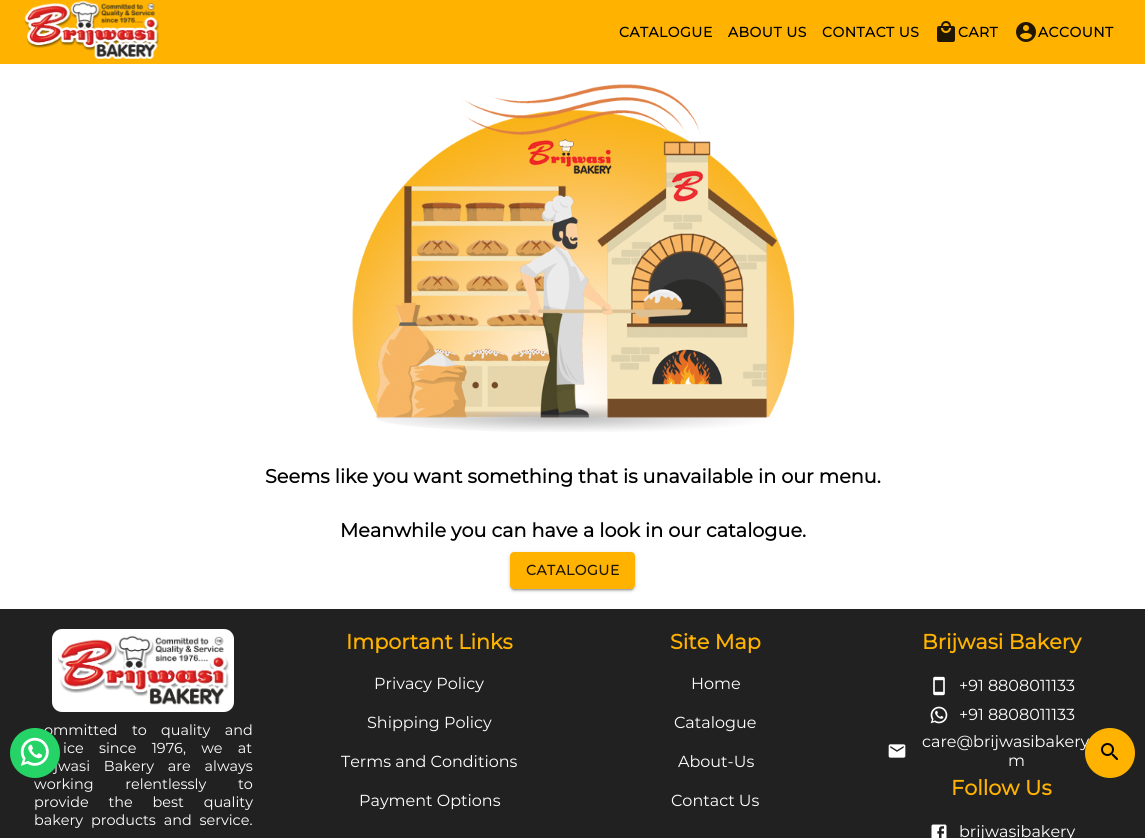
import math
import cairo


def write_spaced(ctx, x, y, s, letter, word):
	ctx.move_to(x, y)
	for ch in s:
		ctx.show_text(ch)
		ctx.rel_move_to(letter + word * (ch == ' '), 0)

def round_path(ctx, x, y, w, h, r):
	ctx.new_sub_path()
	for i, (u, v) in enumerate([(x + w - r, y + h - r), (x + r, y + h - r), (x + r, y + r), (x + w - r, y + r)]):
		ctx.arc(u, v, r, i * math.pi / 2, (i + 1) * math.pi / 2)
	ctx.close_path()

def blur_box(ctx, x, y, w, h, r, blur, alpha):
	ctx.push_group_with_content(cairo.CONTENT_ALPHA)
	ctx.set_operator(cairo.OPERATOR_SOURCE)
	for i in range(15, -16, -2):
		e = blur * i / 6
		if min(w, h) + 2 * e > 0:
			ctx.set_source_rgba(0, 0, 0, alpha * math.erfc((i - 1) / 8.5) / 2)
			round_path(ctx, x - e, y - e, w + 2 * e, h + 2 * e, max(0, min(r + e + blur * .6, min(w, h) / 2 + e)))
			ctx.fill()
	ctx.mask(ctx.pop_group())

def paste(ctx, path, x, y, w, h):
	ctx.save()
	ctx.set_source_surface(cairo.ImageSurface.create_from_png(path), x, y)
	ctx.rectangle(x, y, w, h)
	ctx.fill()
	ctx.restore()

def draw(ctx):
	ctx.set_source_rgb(1, 1, 1)
	ctx.paint()
	ctx.set_source_rgb(1, 0.702, 0)
	ctx.rectangle(0, 0, 1145, 64)
	ctx.fill()
	paste(ctx, 'media/1.png', 24, 0, 135, 59)
	ctx.select_font_face('Montserrat', cairo.FONT_SLANT_NORMAL, cairo.FONT_WEIGHT_BOLD)
	ctx.set_font_size(14)
	ctx.set_source_rgb(0, 0, 0)
	for x, y, s in [
		(619, 37, 'CATALOGUE'),
		(728, 37, 'ABOUT US'),
		(822, 37, 'CONTACT US'),
	]:
		write_spaced(ctx, x, y, s, 0.5, 0)
	paste(ctx, 'media/2.png', 937, 21, 18, 21)
	write_spaced(ctx, 958, 37, 'CART', 0.5, 0)
	paste(ctx, 'media/3.png', 1016, 22, 20, 20)
	write_spaced(ctx, 1038, 37, 'ACCOUNT', 0.5, 0)
	ctx.set_source_rgb(0.129, 0.129, 0.129)
	ctx.rectangle(0, 609, 1145, 229)
	ctx.fill()
	ctx.select_font_face('Montserrat Thin')
	ctx.set_font_size(14.4)
	ctx.set_source_rgb(1, 1, 1)
	write_spaced(ctx, 44, 735, 'ommitted to quality and', 0, 10.5)
	write_spaced(ctx, 54, 771, 'jwasi Bakery are always', 0, 10)
	ctx.set_source_rgb(0.145, 0.827, 0.4)
	ctx.new_path()
	ctx.arc(35, 753, 25, 0, 2 * math.pi)
	ctx.fill()
	paste(ctx, 'media/4.png', 20, 737, 29, 29)
	ctx.set_font_size(16)
	ctx.set_source_rgb(1, 1, 1)
	ctx.move_to(922, 747)
	ctx.show_text('care@brijwasibakery')
	ctx.set_source_rgb(1, 0.702, 0)
	ctx.new_path()
	ctx.arc(1110, 753, 25, 0, 2 * math.pi)
	ctx.fill()
	paste(ctx, 'media/5.png', 1101, 743, 17, 17)
	paste(ctx, 'media/6.png', 352, 84, 443, 348)
	ctx.select_font_face('Montserrat', cairo.FONT_SLANT_NORMAL, cairo.FONT_WEIGHT_BOLD)
	ctx.set_font_size(19.2)
	ctx.set_source_rgb(0, 0, 0)
	ctx.move_to(265, 483)
	ctx.show_text('Seems like you want something that is unavailable in our menu.')
	ctx.move_to(340, 537)
	ctx.show_text('Meanwhile you can have a look in our catalogue.')
	ctx.set_source_rgb(0, 0, 0)
	blur_box(ctx, 510, 553, 125, 37, 4, 2.5, 0.12)
	blur_box(ctx, 510, 554, 125, 37, 4, 1, 0.14)
	blur_box(ctx, 512, 557, 121, 33, 2, 0.5, 0.2)
	ctx.set_source_rgb(1, 0.702, 0)
	round_path(ctx, 510, 552, 125, 37, 4)
	ctx.fill()
	ctx.set_font_size(14)
	ctx.set_source_rgb(0.129, 0.09, 0)
	write_spaced(ctx, 526, 575, 'CATALOGUE', 0.5, 0)
	ctx.set_source_rgb(1, 1, 1)
	round_path(ctx, 52, 629, 182, 83, 10)
	ctx.fill()
	paste(ctx, 'media/7.png', 57, 635, 172, 70)
	ctx.select_font_face('Montserrat Thin')
	ctx.set_font_size(14.4)
	write_spaced(ctx, 63, 753, 'ice since 1976, we at', 0, 11.5)
	write_spaced(ctx, 34, 789, 'working relentlessly to', 0, 28)
	write_spaced(ctx, 34, 807, 'provide the best quality', 0, 16)
	write_spaced(ctx, 34, 825, 'bakery products and service.', 0, 4)
	ctx.select_font_face('Montserrat', cairo.FONT_SLANT_NORMAL, cairo.FONT_WEIGHT_BOLD)
	ctx.set_font_size(20.75)
	ctx.set_source_rgb(1, 0.702, 0)
	ctx.move_to(346, 649)
	ctx.show_text('Important Links')
	ctx.select_font_face('Montserrat Thin')
	ctx.set_font_size(16)
	ctx.set_source_rgb(1, 1, 1)
	for x, y, s in [
		(374, 689, 'Privacy Policy'),
		(367, 728, 'Shipping Policy'),
		(341, 767, 'Terms and Conditions'),
		(359, 806, 'Payment Options'),
	]:
		ctx.move_to(x, y)
		ctx.show_text(s)
	ctx.select_font_face('Montserrat', cairo.FONT_SLANT_NORMAL, cairo.FONT_WEIGHT_BOLD)
	ctx.set_font_size(20.75)
	ctx.set_source_rgb(1, 0.702, 0)
	ctx.move_to(670, 649)
	ctx.show_text('Site Map')
	ctx.select_font_face('Montserrat Thin')
	ctx.set_font_size(16)
	ctx.set_source_rgb(1, 1, 1)
	for x, y, s in [
		(691, 689, 'Home'),
		(674, 728, 'Catalogue'),
		(678, 767, 'About-Us'),
		(671, 806, 'Contact Us'),
	]:
		ctx.move_to(x, y)
		ctx.show_text(s)
	ctx.select_font_face('Montserrat', cairo.FONT_SLANT_NORMAL, cairo.FONT_WEIGHT_BOLD)
	ctx.set_font_size(20.75)
	ctx.set_source_rgb(1, 0.702, 0)
	ctx.move_to(922, 649)
	ctx.show_text('Brijwasi Bakery')
	paste(ctx, 'media/8.png', 933, 676, 12, 20)
	ctx.select_font_face('Montserrat Thin')
	ctx.set_font_size(16)
	ctx.set_source_rgb(1, 1, 1)
	ctx.move_to(959, 691)
	ctx.show_text('+91 8808011133')
	paste(ctx, 'media/9.png', 930, 706, 18, 18)
	ctx.move_to(959, 720)
	ctx.show_text('+91 8808011133')
	paste(ctx, 'media/10.png', 888, 744, 18, 14)
	ctx.move_to(1008, 766)
	ctx.show_text('m')
	ctx.select_font_face('Montserrat', cairo.FONT_SLANT_NORMAL, cairo.FONT_WEIGHT_BOLD)
	ctx.set_font_size(20.75)
	ctx.set_source_rgb(1, 0.702, 0)
	ctx.move_to(951, 795)
	ctx.show_text('Follow Us')
	paste(ctx, 'media/11.png', 931, 824, 16, 14)
	ctx.select_font_face('Montserrat Thin')
	ctx.set_font_size(16)
	ctx.set_source_rgb(1, 1, 1)
	ctx.move_to(959, 837)
	ctx.show_text('brijwasibakery')


surface = cairo.ImageSurface(cairo.FORMAT_RGB24, 1145, 838)
ctx = cairo.Context(surface)
options = cairo.FontOptions()
options.set_hint_metrics(cairo.HINT_METRICS_OFF)
options.set_hint_style(cairo.HINT_STYLE_NONE)
ctx.set_font_options(options)
ctx.set_miter_limit(4)
draw(ctx)
surface.write_to_png('image.png')
